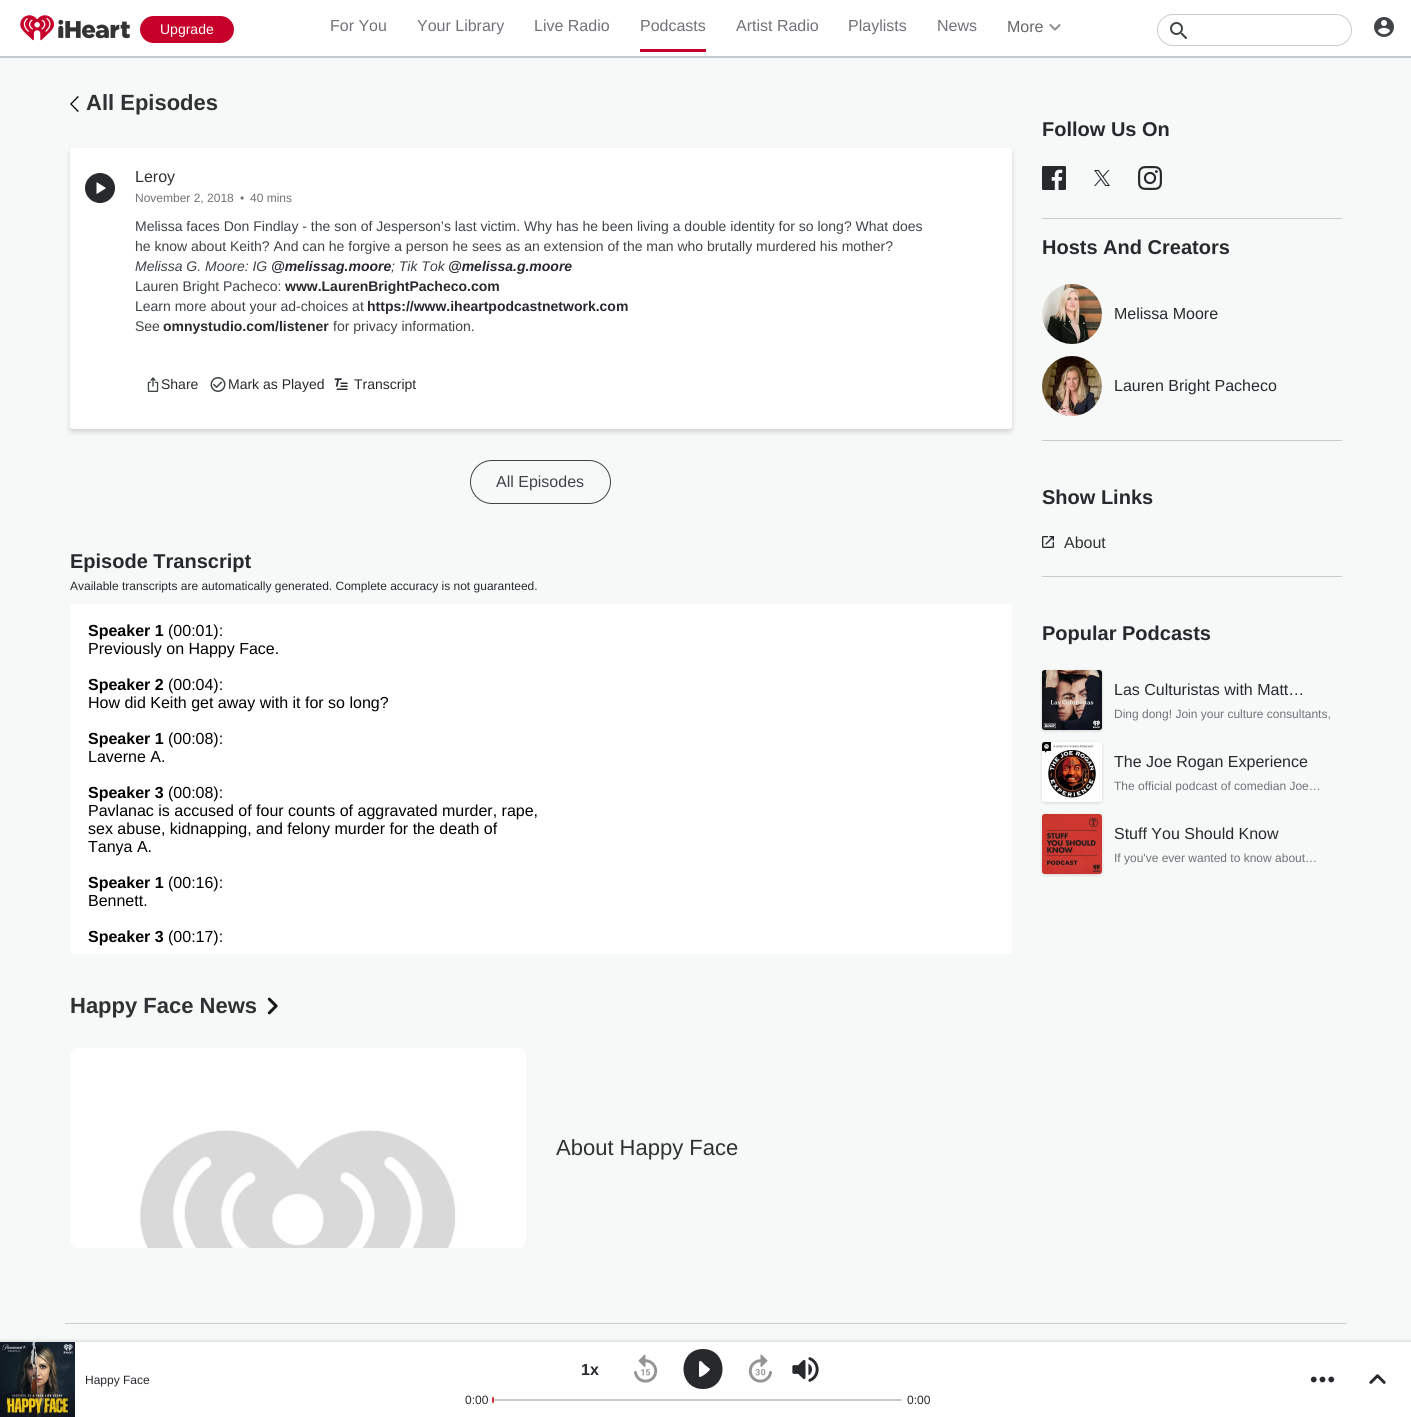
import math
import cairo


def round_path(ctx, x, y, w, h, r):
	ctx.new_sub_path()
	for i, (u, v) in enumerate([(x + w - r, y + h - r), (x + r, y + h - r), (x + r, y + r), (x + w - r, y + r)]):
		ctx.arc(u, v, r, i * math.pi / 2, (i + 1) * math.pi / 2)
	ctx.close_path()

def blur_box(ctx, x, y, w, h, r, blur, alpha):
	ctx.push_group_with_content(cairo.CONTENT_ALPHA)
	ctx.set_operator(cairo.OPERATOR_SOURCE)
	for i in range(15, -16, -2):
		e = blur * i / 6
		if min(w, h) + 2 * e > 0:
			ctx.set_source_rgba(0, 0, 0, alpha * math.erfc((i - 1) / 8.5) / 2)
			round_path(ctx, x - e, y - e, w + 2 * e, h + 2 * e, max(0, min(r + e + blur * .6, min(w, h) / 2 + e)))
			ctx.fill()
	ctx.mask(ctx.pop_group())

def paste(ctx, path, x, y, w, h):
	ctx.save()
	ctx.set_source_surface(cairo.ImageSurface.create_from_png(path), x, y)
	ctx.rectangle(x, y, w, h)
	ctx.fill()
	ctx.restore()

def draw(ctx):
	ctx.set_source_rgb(0.965, 0.973, 0.976)
	ctx.paint()
	ctx.set_source_rgb(1, 1, 1)
	ctx.rectangle(0, 0, 1411, 56)
	ctx.fill()
	ctx.set_source_rgb(0.773, 0.804, 0.824)
	ctx.rectangle(0, 56, 1411, 2)
	ctx.fill()
	paste(ctx, 'media/1.png', 20, 15, 110, 26)
	ctx.set_source_rgb(0.776, 0, 0.169)
	round_path(ctx, 140, 16, 94, 27, 13.5)
	ctx.fill()
	ctx.select_font_face('Liberation Sans')
	ctx.set_font_size(14)
	ctx.set_source_rgb(1, 1, 1)
	ctx.move_to(160, 34)
	ctx.show_text('Upgrade')
	ctx.set_font_size(16)
	ctx.set_source_rgb(0.443, 0.447, 0.467)
	for x, y, s in [
		(330, 31, 'For You'),
		(417, 31, 'Your Library'),
		(534, 31, 'Live Radio'),
		(640, 31, 'Podcasts'),
	]:
		ctx.move_to(x, y)
		ctx.show_text(s)
	ctx.set_source_rgb(0.776, 0, 0.169)
	ctx.rectangle(640, 49, 66, 3)
	ctx.fill()
	ctx.set_source_rgb(0.443, 0.447, 0.467)
	for x, y, s in [
		(736, 31, 'Artist Radio'),
		(848, 31, 'Playlists'),
		(937, 31, 'News'),
	]:
		ctx.move_to(x, y)
		ctx.show_text(s)
	ctx.set_source_rgb(0.4, 0.4, 0.4)
	ctx.move_to(1007, 32)
	ctx.show_text('More')
	paste(ctx, 'media/2.png', 1049, 24, 12, 7)
	round_path(ctx, 1157.5, 14.5, 194, 31, 15.5)
	ctx.set_source_rgb(0.773, 0.804, 0.824)
	ctx.set_line_width(1)
	ctx.stroke()
	paste(ctx, 'media/3.png', 1170, 22, 17, 17)
	paste(ctx, 'media/4.png', 1374, 17, 20, 20)
	paste(ctx, 'media/5.png', 70, 96, 9, 16)
	ctx.select_font_face('Liberation Sans', cairo.FONT_SLANT_NORMAL, cairo.FONT_WEIGHT_BOLD)
	ctx.set_font_size(22)
	ctx.set_source_rgb(0.184, 0.192, 0.2)
	ctx.move_to(86, 110)
	ctx.show_text('All Episodes')
	ctx.set_source_rgb(0, 0, 0)
	blur_box(ctx, 70, 151, 942, 281, 3, 2.5, 0.15)
	ctx.set_source_rgb(1, 1, 1)
	round_path(ctx, 70, 148, 942, 281, 3)
	ctx.fill()
	ctx.set_source_rgb(0.153, 0.161, 0.176)
	ctx.arc(100, 188, 14.5, 0, 2 * math.pi)
	ctx.fill_preserve()
	ctx.stroke()
	paste(ctx, 'media/6.png', 96, 182, 10, 12)
	ctx.select_font_face('Liberation Sans')
	ctx.set_font_size(16)
	ctx.set_source_rgb(0.184, 0.192, 0.2)
	ctx.move_to(135, 182)
	ctx.show_text('Leroy')
	ctx.set_font_size(12)
	ctx.set_source_rgb(0.443, 0.447, 0.467)
	for x, y, s in [
		(135, 202, 'November 2, 2018'),
		(240, 202, '•'),
		(250, 202, '40 mins'),
	]:
		ctx.move_to(x, y)
		ctx.show_text(s)
	ctx.set_font_size(14)
	ctx.set_source_rgb(0.247, 0.267, 0.278)
	ctx.move_to(135, 231)
	ctx.show_text('Melissa faces Don Findlay - the son of Jesperson’s last victim. Why has he been living a double identity for so long? What does')
	ctx.move_to(135, 251)
	ctx.show_text('he know about Keith? And can he forgive a person he sees as an extension of the man who brutally murdered his mother?')
	ctx.select_font_face('Liberation Sans', cairo.FONT_SLANT_ITALIC)
	ctx.move_to(135, 271)
	ctx.show_text('Melissa G. Moore: IG')
	ctx.select_font_face('Liberation Sans', cairo.FONT_SLANT_ITALIC, cairo.FONT_WEIGHT_BOLD)
	ctx.set_source_rgb(0.153, 0.161, 0.176)
	ctx.move_to(271, 271)
	ctx.show_text('@melissag.moore')
	ctx.select_font_face('Liberation Sans', cairo.FONT_SLANT_ITALIC)
	ctx.set_source_rgb(0.247, 0.267, 0.278)
	ctx.move_to(391, 271)
	ctx.show_text('; Tik Tok')
	ctx.select_font_face('Liberation Sans', cairo.FONT_SLANT_ITALIC, cairo.FONT_WEIGHT_BOLD)
	ctx.set_source_rgb(0.153, 0.161, 0.176)
	ctx.move_to(448, 271)
	ctx.show_text('@melissa.g.moore')
	ctx.select_font_face('Liberation Sans')
	ctx.set_source_rgb(0.247, 0.267, 0.278)
	ctx.move_to(135, 291)
	ctx.show_text('Lauren Bright Pacheco:')
	ctx.select_font_face('Liberation Sans', cairo.FONT_SLANT_NORMAL, cairo.FONT_WEIGHT_BOLD)
	ctx.set_source_rgb(0.153, 0.161, 0.176)
	ctx.move_to(285, 291)
	ctx.show_text('www.LaurenBrightPacheco.com')
	ctx.select_font_face('Liberation Sans')
	ctx.set_source_rgb(0.247, 0.267, 0.278)
	ctx.move_to(135, 311)
	ctx.show_text('Learn more about your ad-choices at')
	ctx.select_font_face('Liberation Sans', cairo.FONT_SLANT_NORMAL, cairo.FONT_WEIGHT_BOLD)
	ctx.set_source_rgb(0.153, 0.161, 0.176)
	ctx.move_to(367, 311)
	ctx.show_text('https://www.iheartpodcastnetwork.com')
	ctx.select_font_face('Liberation Sans')
	ctx.set_source_rgb(0.247, 0.267, 0.278)
	ctx.move_to(135, 331)
	ctx.show_text('See')
	ctx.select_font_face('Liberation Sans', cairo.FONT_SLANT_NORMAL, cairo.FONT_WEIGHT_BOLD)
	ctx.set_source_rgb(0.153, 0.161, 0.176)
	ctx.move_to(163, 331)
	ctx.show_text('omnystudio.com/listener')
	ctx.select_font_face('Liberation Sans')
	ctx.set_source_rgb(0.247, 0.267, 0.278)
	ctx.move_to(333, 331)
	ctx.show_text('for privacy information.')
	paste(ctx, 'media/7.png', 147, 377, 12, 15)
	ctx.set_source_rgb(0.153, 0.161, 0.176)
	ctx.move_to(161, 389)
	ctx.show_text('Share')
	paste(ctx, 'media/8.png', 210, 377, 16, 15)
	ctx.move_to(228, 389)
	ctx.show_text('Mark as Played')
	paste(ctx, 'media/9.png', 334, 378, 14, 12)
	ctx.move_to(354, 389)
	ctx.show_text('Transcript')
	round_path(ctx, 470.5, 460.5, 140, 43, 21.5)
	ctx.set_source_rgb(0.247, 0.267, 0.278)
	ctx.stroke()
	ctx.set_font_size(16)
	ctx.move_to(496, 487)
	ctx.show_text('All Episodes')
	ctx.select_font_face('Liberation Sans', cairo.FONT_SLANT_NORMAL, cairo.FONT_WEIGHT_BOLD)
	ctx.set_font_size(20)
	ctx.set_source_rgb(0.153, 0.161, 0.176)
	ctx.move_to(70, 568)
	ctx.show_text('Episode Transcript')
	ctx.select_font_face('Liberation Sans')
	ctx.set_font_size(12)
	ctx.move_to(70, 590)
	ctx.show_text('Available transcripts are automatically generated. Complete accuracy is not guaranteed.')
	ctx.set_source_rgb(1, 1, 1)
	round_path(ctx, 70, 604, 942, 350, 3)
	ctx.fill()
	ctx.select_font_face('Liberation Sans', cairo.FONT_SLANT_NORMAL, cairo.FONT_WEIGHT_BOLD)
	ctx.set_font_size(16)
	ctx.set_source_rgb(0, 0, 0)
	ctx.move_to(88, 636)
	ctx.show_text('Speaker 1')
	ctx.select_font_face('Liberation Sans')
	ctx.move_to(168, 636)
	ctx.show_text('(00:01):')
	ctx.move_to(88, 654)
	ctx.show_text('Previously on Happy Face.')
	ctx.select_font_face('Liberation Sans', cairo.FONT_SLANT_NORMAL, cairo.FONT_WEIGHT_BOLD)
	ctx.move_to(88, 690)
	ctx.show_text('Speaker 2')
	ctx.select_font_face('Liberation Sans')
	ctx.move_to(168, 690)
	ctx.show_text('(00:04):')
	ctx.move_to(88, 708)
	ctx.show_text('How did Keith get away with it for so long?')
	ctx.select_font_face('Liberation Sans', cairo.FONT_SLANT_NORMAL, cairo.FONT_WEIGHT_BOLD)
	ctx.move_to(88, 744)
	ctx.show_text('Speaker 1')
	ctx.select_font_face('Liberation Sans')
	ctx.move_to(168, 744)
	ctx.show_text('(00:08):')
	ctx.move_to(88, 762)
	ctx.show_text('Laverne A.')
	ctx.select_font_face('Liberation Sans', cairo.FONT_SLANT_NORMAL, cairo.FONT_WEIGHT_BOLD)
	ctx.move_to(88, 798)
	ctx.show_text('Speaker 3')
	ctx.select_font_face('Liberation Sans')
	for x, y, s in [
		(168, 798, '(00:08):'),
		(88, 816, 'Pavlanac is accused of four counts of aggravated murder, rape,'),
		(88, 834, 'sex abuse, kidnapping, and felony murder for the death of'),
		(88, 852, 'Tanya A.'),
	]:
		ctx.move_to(x, y)
		ctx.show_text(s)
	ctx.select_font_face('Liberation Sans', cairo.FONT_SLANT_NORMAL, cairo.FONT_WEIGHT_BOLD)
	ctx.move_to(88, 888)
	ctx.show_text('Speaker 1')
	ctx.select_font_face('Liberation Sans')
	ctx.move_to(168, 888)
	ctx.show_text('(00:16):')
	ctx.move_to(88, 906)
	ctx.show_text('Bennett.')
	ctx.select_font_face('Liberation Sans', cairo.FONT_SLANT_NORMAL, cairo.FONT_WEIGHT_BOLD)
	ctx.move_to(88, 942)
	ctx.show_text('Speaker 3')
	ctx.select_font_face('Liberation Sans')
	ctx.move_to(168, 942)
	ctx.show_text('(00:17):')
	ctx.select_font_face('Liberation Sans', cairo.FONT_SLANT_NORMAL, cairo.FONT_WEIGHT_BOLD)
	ctx.set_font_size(22)
	ctx.set_source_rgb(0.184, 0.192, 0.2)
	ctx.move_to(70, 1013)
	ctx.show_text('Happy Face News')
	paste(ctx, 'media/10.png', 267, 997, 11, 18)
	paste(ctx, 'media/11.png', 70, 1048, 456, 200)
	ctx.select_font_face('Liberation Sans')
	ctx.move_to(556, 1155)
	ctx.show_text('About Happy Face')
	ctx.set_source_rgb(0.773, 0.804, 0.824)
	ctx.rectangle(1042, 218, 300, 1)
	ctx.fill()
	ctx.select_font_face('Liberation Sans', cairo.FONT_SLANT_NORMAL, cairo.FONT_WEIGHT_BOLD)
	ctx.set_font_size(20)
	ctx.set_source_rgb(0.153, 0.161, 0.176)
	ctx.move_to(1042, 136)
	ctx.show_text('Follow Us On')
	paste(ctx, 'media/12.png', 1042, 166, 24, 24)
	paste(ctx, 'media/13.png', 1094, 170, 16, 16)
	paste(ctx, 'media/14.png', 1138, 166, 24, 24)
	ctx.set_source_rgb(0.773, 0.804, 0.824)
	ctx.rectangle(1042, 440, 300, 1)
	ctx.fill()
	ctx.set_source_rgb(0.153, 0.161, 0.176)
	ctx.move_to(1042, 254)
	ctx.show_text('Hosts And Creators')
	paste(ctx, 'media/15.png', 1042, 284, 60, 60)
	ctx.select_font_face('Liberation Sans')
	ctx.set_font_size(16)
	ctx.move_to(1114, 319)
	ctx.show_text('Melissa Moore')
	paste(ctx, 'media/16.png', 1042, 356, 60, 60)
	ctx.move_to(1114, 391)
	ctx.show_text('Lauren Bright Pacheco')
	ctx.set_source_rgb(0.773, 0.804, 0.824)
	ctx.rectangle(1042, 576, 300, 1)
	ctx.fill()
	ctx.select_font_face('Liberation Sans', cairo.FONT_SLANT_NORMAL, cairo.FONT_WEIGHT_BOLD)
	ctx.set_font_size(20)
	ctx.set_source_rgb(0.153, 0.161, 0.176)
	ctx.move_to(1042, 504)
	ctx.show_text('Show Links')
	paste(ctx, 'media/17.png', 1042, 536, 12, 12)
	ctx.select_font_face('Liberation Sans')
	ctx.set_font_size(16)
	ctx.set_source_rgb(0.184, 0.192, 0.2)
	ctx.move_to(1064, 548)
	ctx.show_text('About')
	ctx.select_font_face('Liberation Sans', cairo.FONT_SLANT_NORMAL, cairo.FONT_WEIGHT_BOLD)
	ctx.set_font_size(20)
	ctx.set_source_rgb(0.153, 0.161, 0.176)
	ctx.move_to(1042, 640)
	ctx.show_text('Popular Podcasts')
	ctx.set_source_rgb(0, 0, 0)
	blur_box(ctx, 1042, 671, 60, 60, 3, 1.5, 0.15)
	paste(ctx, 'media/18.png', 1042, 670, 60, 60)
	ctx.select_font_face('Liberation Sans')
	ctx.set_font_size(16)
	ctx.set_source_rgb(0.141, 0.137, 0.137)
	ctx.move_to(1042, 684)
	ctx.show_text('“')
	ctx.set_source_rgb(0.153, 0.161, 0.176)
	ctx.move_to(1114, 695)
	ctx.show_text('Las Culturistas with Matt…')
	ctx.set_font_size(12)
	ctx.set_source_rgb(0.443, 0.447, 0.467)
	ctx.move_to(1114, 718)
	ctx.show_text('Ding dong! Join your culture consultants,')
	ctx.set_source_rgb(0, 0, 0)
	blur_box(ctx, 1042, 743, 60, 60, 3, 1.5, 0.15)
	paste(ctx, 'media/19.png', 1042, 742, 60, 60)
	ctx.set_font_size(16)
	ctx.set_source_rgb(0.153, 0.161, 0.176)
	ctx.move_to(1114, 767)
	ctx.show_text('The Joe Rogan Experience')
	ctx.set_font_size(12)
	ctx.set_source_rgb(0.443, 0.447, 0.467)
	ctx.move_to(1114, 790)
	ctx.show_text('The official podcast of comedian Joe…')
	ctx.set_source_rgb(0, 0, 0)
	blur_box(ctx, 1042, 815, 60, 60, 3, 1.5, 0.15)
	paste(ctx, 'media/20.png', 1042, 814, 60, 60)
	ctx.set_font_size(16)
	ctx.set_source_rgb(0.153, 0.161, 0.176)
	ctx.move_to(1114, 839)
	ctx.show_text('Stuff You Should Know')
	ctx.set_font_size(12)
	ctx.set_source_rgb(0.443, 0.447, 0.467)
	ctx.move_to(1114, 862)
	ctx.show_text('If you\'ve ever wanted to know about…')
	ctx.set_source_rgb(0.773, 0.804, 0.824)
	ctx.rectangle(65, 1323, 1282, 1)
	ctx.fill()
	ctx.set_source_rgb(0, 0, 0)
	blur_box(ctx, 0, 1341, 1411, 75, 0, 1.5, 0.15)
	ctx.set_source_rgb(1, 1, 1)
	ctx.rectangle(75, 1342, 1336, 75)
	ctx.fill()
	paste(ctx, 'media/21.png', 0, 1342, 75, 75)
	ctx.set_source_rgb(0.153, 0.161, 0.176)
	ctx.move_to(85, 1384)
	ctx.show_text('Happy Face')
	ctx.select_font_face('Liberation Sans', cairo.FONT_SLANT_NORMAL, cairo.FONT_WEIGHT_BOLD)
	ctx.set_font_size(16)
	ctx.move_to(581, 1375)
	ctx.show_text('1x')
	paste(ctx, 'media/22.png', 634, 1354, 24, 29)
	ctx.new_path()
	ctx.move_to(703, 1349)
	ctx.curve_to(677, 1349, 677, 1389, 703, 1389)
	ctx.curve_to(729, 1389, 729, 1349, 703, 1349)
	ctx.close_path()
	ctx.move_to(699, 1376)
	ctx.line_to(699, 1364)
	ctx.curve_to(699, 1358, 702, 1362, 705, 1365)
	ctx.line_to(710, 1369)
	ctx.curve_to(711, 1370, 699, 1380, 699, 1376)
	ctx.close_path()
	ctx.fill()
	paste(ctx, 'media/23.png', 748, 1354, 24, 29)
	paste(ctx, 'media/24.png', 792, 1357, 27, 25)
	ctx.select_font_face('Liberation Sans')
	ctx.set_font_size(12)
	ctx.move_to(465, 1404)
	ctx.show_text('0:00')
	ctx.set_source_rgb(0.773, 0.804, 0.824)
	round_path(ctx, 493, 1399, 409, 2, 1)
	ctx.fill()
	ctx.set_source_rgb(0.835, 0.176, 0.216)
	round_path(ctx, 492, 1397, 2, 6, 1)
	ctx.fill()
	ctx.set_source_rgb(0.153, 0.161, 0.176)
	ctx.move_to(907, 1404)
	ctx.show_text('0:00')
	paste(ctx, 'media/25.png', 1310, 1376, 25, 7)
	paste(ctx, 'media/26.png', 1369, 1374, 17, 10)


surface = cairo.ImageSurface(cairo.FORMAT_RGB24, 1411, 1417)
ctx = cairo.Context(surface)
options = cairo.FontOptions()
options.set_hint_metrics(cairo.HINT_METRICS_OFF)
options.set_hint_style(cairo.HINT_STYLE_NONE)
ctx.set_font_options(options)
ctx.set_miter_limit(4)
draw(ctx)
surface.write_to_png('image.png')
